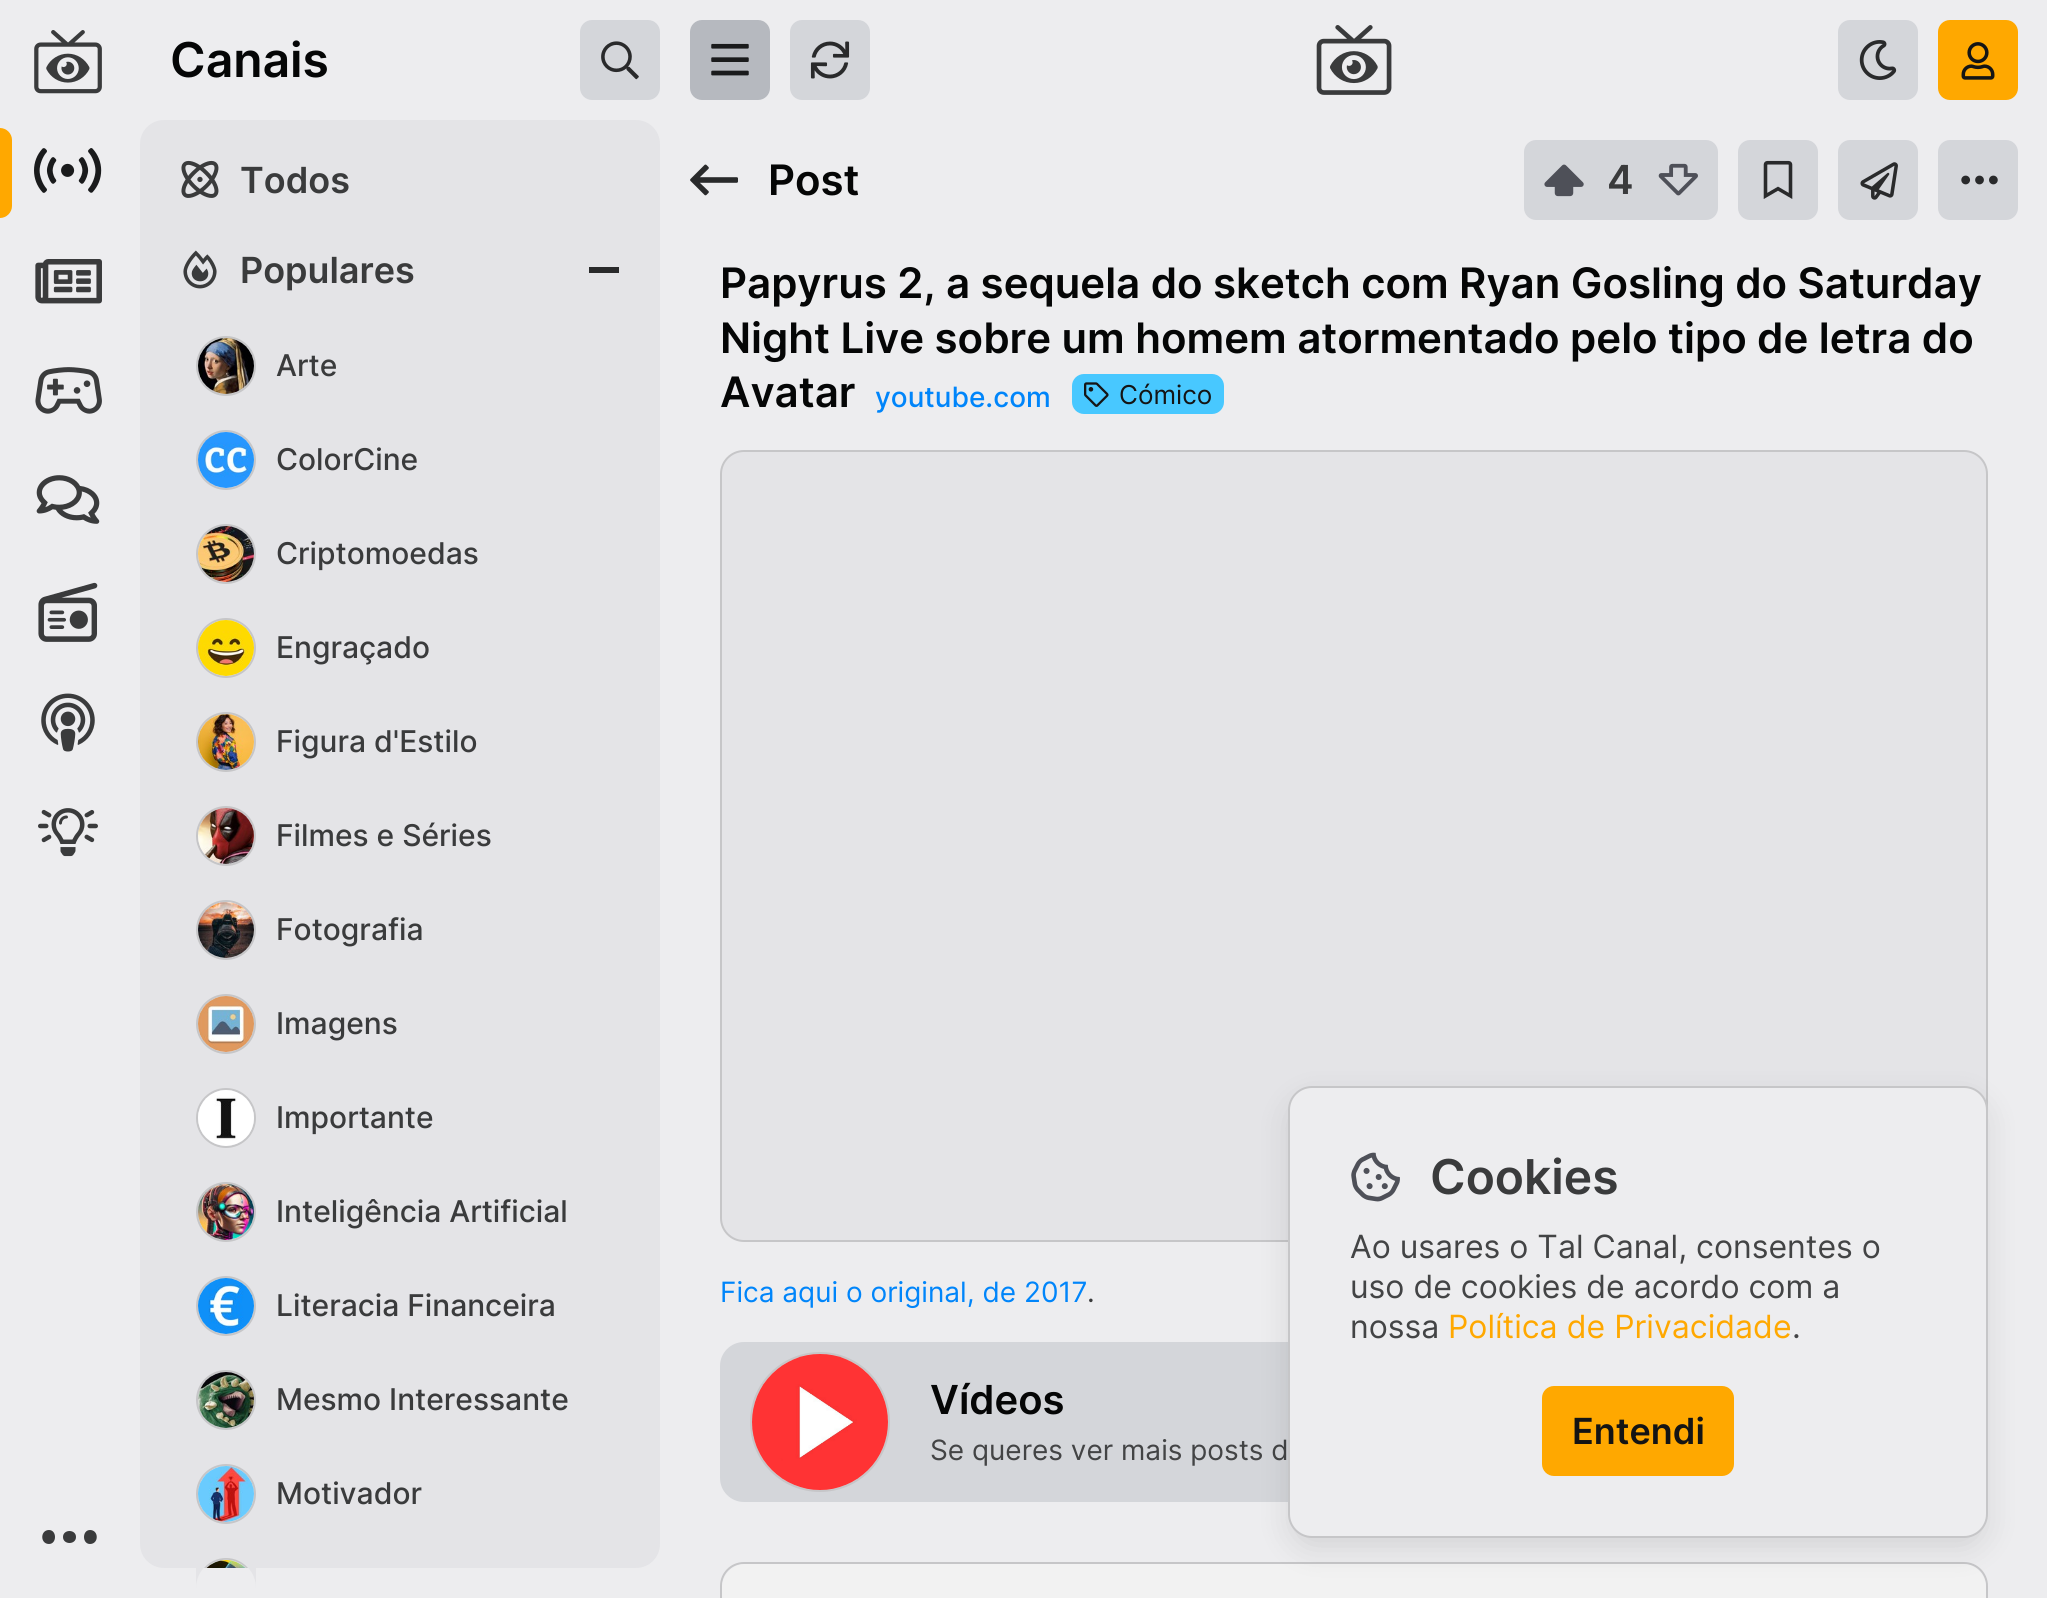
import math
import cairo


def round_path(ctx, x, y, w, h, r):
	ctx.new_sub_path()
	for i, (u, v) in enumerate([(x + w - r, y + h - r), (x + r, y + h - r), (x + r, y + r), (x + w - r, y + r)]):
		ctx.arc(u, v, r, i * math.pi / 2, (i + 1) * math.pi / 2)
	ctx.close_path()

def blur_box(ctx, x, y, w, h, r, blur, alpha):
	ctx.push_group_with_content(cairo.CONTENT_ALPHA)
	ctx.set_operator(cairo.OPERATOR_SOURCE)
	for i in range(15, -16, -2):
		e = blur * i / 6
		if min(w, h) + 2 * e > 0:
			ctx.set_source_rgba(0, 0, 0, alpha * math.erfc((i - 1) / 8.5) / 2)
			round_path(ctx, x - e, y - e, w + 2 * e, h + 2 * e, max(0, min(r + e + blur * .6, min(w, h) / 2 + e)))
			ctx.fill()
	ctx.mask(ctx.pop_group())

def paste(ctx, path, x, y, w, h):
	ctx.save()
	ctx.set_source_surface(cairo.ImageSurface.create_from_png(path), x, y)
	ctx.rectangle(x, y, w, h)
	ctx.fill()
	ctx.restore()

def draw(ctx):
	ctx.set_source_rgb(0.929, 0.929, 0.937)
	ctx.paint()
	paste(ctx, 'media/1.png', 34, 30, 68, 64)
	ctx.set_source_rgb(1, 0.659, 0)
	ctx.new_path()
	ctx.move_to(0, 128)
	ctx.curve_to(6.5, 128, 12, 133.5, 12, 140)
	ctx.line_to(12, 206)
	ctx.curve_to(12, 212.5, 6.5, 218, 0, 218)
	ctx.close_path()
	ctx.fill()
	paste(ctx, 'media/2.png', 34, 148, 68, 45)
	paste(ctx, 'media/3.png', 35, 259, 67, 45)
	paste(ctx, 'media/4.png', 35, 367, 67, 47)
	paste(ctx, 'media/5.png', 36, 475, 64, 49)
	paste(ctx, 'media/6.png', 38, 582, 60, 60)
	paste(ctx, 'media/7.png', 41, 693, 54, 59)
	paste(ctx, 'media/8.png', 38, 808, 60, 49)
	ctx.set_source_rgb(0.227, 0.231, 0.235)
	ctx.new_path()
	ctx.move_to(76, 1537)
	ctx.curve_to(76, 1529, 63, 1529, 63, 1537)
	ctx.curve_to(63, 1545, 76, 1545, 76, 1537)
	ctx.close_path()
	ctx.move_to(90, 1530)
	ctx.curve_to(82, 1530, 82, 1544, 90, 1544)
	ctx.curve_to(99, 1544, 99, 1530, 90, 1530)
	ctx.close_path()
	ctx.move_to(49, 1530)
	ctx.curve_to(40, 1530, 40, 1544, 49, 1544)
	ctx.curve_to(57, 1544, 57, 1530, 49, 1530)
	ctx.close_path()
	ctx.fill()
	ctx.select_font_face('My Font')
	ctx.set_font_size(48)
	ctx.set_source_rgb(0.02, 0.024, 0.027)
	ctx.move_to(170, 77)
	ctx.show_text('Canais')
	ctx.set_source_rgb(0.831, 0.839, 0.855)
	round_path(ctx, 580, 20, 80, 80, 12)
	ctx.fill()
	paste(ctx, 'media/9.png', 601, 41, 38, 39)
	ctx.set_source_rgb(0.894, 0.894, 0.906)
	round_path(ctx, 140, 120, 520, 1448, 24)
	ctx.fill()
	paste(ctx, 'media/10.png', 181, 160, 38, 38)
	ctx.set_font_size(36)
	ctx.set_source_rgb(0.227, 0.231, 0.235)
	ctx.move_to(240, 193)
	ctx.show_text('Todos')
	paste(ctx, 'media/11.png', 183, 250, 34, 39)
	ctx.move_to(240, 283)
	ctx.show_text('Populares')
	ctx.set_source_rgb(0.161, 0.165, 0.169)
	ctx.rectangle(589, 267, 30, 6)
	ctx.fill()
	ctx.arc(226, 366, 29, 0, 2 * math.pi)
	ctx.set_source_rgb(0.776, 0.776, 0.784)
	ctx.stroke()
	paste(ctx, 'media/12.png', 198, 338, 56, 56)
	ctx.select_font_face('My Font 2')
	ctx.set_font_size(30)
	ctx.set_source_rgb(0.227, 0.231, 0.235)
	ctx.move_to(276, 376)
	ctx.show_text('Arte')
	ctx.new_path()
	ctx.arc(226, 460, 29, 0, 2 * math.pi)
	ctx.set_source_rgb(0.776, 0.776, 0.784)
	ctx.stroke()
	paste(ctx, 'media/13.png', 198, 432, 56, 56)
	ctx.set_source_rgb(0.227, 0.231, 0.235)
	ctx.move_to(276, 470)
	ctx.show_text('ColorCine')
	ctx.new_path()
	ctx.arc(226, 554, 29, 0, 2 * math.pi)
	ctx.set_source_rgb(0.776, 0.776, 0.784)
	ctx.stroke()
	paste(ctx, 'media/14.png', 198, 526, 56, 56)
	ctx.set_source_rgb(0.227, 0.231, 0.235)
	ctx.move_to(276, 564)
	ctx.show_text('Criptomoedas')
	ctx.new_path()
	ctx.arc(226, 648, 29, 0, 2 * math.pi)
	ctx.set_source_rgb(0.776, 0.776, 0.784)
	ctx.stroke()
	paste(ctx, 'media/15.png', 198, 620, 56, 56)
	ctx.set_source_rgb(0.227, 0.231, 0.235)
	ctx.move_to(276, 658)
	ctx.show_text('Engraçado')
	ctx.new_path()
	ctx.arc(226, 742, 29, 0, 2 * math.pi)
	ctx.set_source_rgb(0.776, 0.776, 0.784)
	ctx.stroke()
	paste(ctx, 'media/16.png', 198, 714, 56, 56)
	ctx.set_source_rgb(0.227, 0.231, 0.235)
	ctx.move_to(276, 752)
	ctx.show_text('Figura d\'Estilo')
	ctx.new_path()
	ctx.arc(226, 836, 29, 0, 2 * math.pi)
	ctx.set_source_rgb(0.776, 0.776, 0.784)
	ctx.stroke()
	paste(ctx, 'media/17.png', 198, 808, 56, 56)
	ctx.set_source_rgb(0.227, 0.231, 0.235)
	ctx.move_to(276, 846)
	ctx.show_text('Filmes e Séries')
	ctx.new_path()
	ctx.arc(226, 930, 29, 0, 2 * math.pi)
	ctx.set_source_rgb(0.776, 0.776, 0.784)
	ctx.stroke()
	paste(ctx, 'media/18.png', 198, 902, 56, 56)
	ctx.set_source_rgb(0.227, 0.231, 0.235)
	ctx.move_to(276, 940)
	ctx.show_text('Fotografia')
	ctx.new_path()
	ctx.arc(226, 1024, 29, 0, 2 * math.pi)
	ctx.set_source_rgb(0.776, 0.776, 0.784)
	ctx.stroke()
	paste(ctx, 'media/19.png', 198, 996, 56, 56)
	ctx.set_source_rgb(0.227, 0.231, 0.235)
	ctx.move_to(276, 1034)
	ctx.show_text('Imagens')
	ctx.new_path()
	ctx.arc(226, 1118, 29, 0, 2 * math.pi)
	ctx.set_source_rgb(0.776, 0.776, 0.784)
	ctx.stroke()
	paste(ctx, 'media/20.png', 198, 1090, 56, 56)
	ctx.set_source_rgb(0.227, 0.231, 0.235)
	ctx.move_to(276, 1128)
	ctx.show_text('Importante')
	ctx.new_path()
	ctx.arc(226, 1212, 29, 0, 2 * math.pi)
	ctx.set_source_rgb(0.776, 0.776, 0.784)
	ctx.stroke()
	paste(ctx, 'media/21.png', 198, 1184, 56, 56)
	ctx.set_source_rgb(0.227, 0.231, 0.235)
	ctx.move_to(276, 1222)
	ctx.show_text('Inteligência Artificial')
	ctx.new_path()
	ctx.arc(226, 1306, 29, 0, 2 * math.pi)
	ctx.set_source_rgb(0.776, 0.776, 0.784)
	ctx.stroke()
	paste(ctx, 'media/22.png', 198, 1278, 56, 56)
	ctx.set_source_rgb(0.227, 0.231, 0.235)
	ctx.move_to(276, 1316)
	ctx.show_text('Literacia Financeira')
	ctx.new_path()
	ctx.arc(226, 1400, 29, 0, 2 * math.pi)
	ctx.set_source_rgb(0.776, 0.776, 0.784)
	ctx.stroke()
	paste(ctx, 'media/23.png', 198, 1372, 56, 56)
	ctx.set_source_rgb(0.227, 0.231, 0.235)
	ctx.move_to(276, 1410)
	ctx.show_text('Mesmo Interessante')
	ctx.new_path()
	ctx.arc(226, 1494, 29, 0, 2 * math.pi)
	ctx.set_source_rgb(0.776, 0.776, 0.784)
	ctx.stroke()
	paste(ctx, 'media/24.png', 198, 1466, 56, 56)
	ctx.set_source_rgb(0.227, 0.231, 0.235)
	ctx.move_to(276, 1504)
	ctx.show_text('Motivador')
	ctx.set_source_rgb(0.894, 0.894, 0.906)
	ctx.new_path()
	ctx.move_to(226, 1558)
	ctx.curve_to(242.5, 1558, 256, 1571.5, 256, 1588)
	ctx.line_to(256, 1568)
	ctx.line_to(196, 1568)
	ctx.line_to(196, 1588)
	ctx.curve_to(196, 1571.5, 209.5, 1558, 226, 1558)
	ctx.close_path()
	ctx.fill()
	ctx.set_source_rgb(0.776, 0.776, 0.784)
	ctx.new_path()
	ctx.move_to(226, 1558)
	ctx.curve_to(217, 1558, 209, 1562, 204, 1568)
	ctx.line_to(206, 1568)
	ctx.curve_to(217, 1557, 235, 1557, 246, 1568)
	ctx.line_to(248, 1568)
	ctx.curve_to(243, 1562, 235, 1558, 226, 1558)
	ctx.close_path()
	ctx.fill()
	paste(ctx, 'media/25.png', 206, 1560, 40, 8)
	ctx.set_source_rgb(0.714, 0.725, 0.749)
	round_path(ctx, 690, 20, 80, 80, 12)
	ctx.fill()
	paste(ctx, 'media/26.png', 711, 43, 38, 33)
	ctx.set_source_rgb(0.831, 0.839, 0.855)
	round_path(ctx, 790, 20, 80, 80, 12)
	ctx.fill()
	paste(ctx, 'media/27.png', 810, 41, 40, 38)
	paste(ctx, 'media/28.png', 1316, 25, 76, 70)
	round_path(ctx, 1838, 20, 80, 80, 12)
	ctx.fill()
	paste(ctx, 'media/29.png', 1859, 40, 38, 40)
	ctx.set_source_rgb(1, 0.659, 0)
	round_path(ctx, 1938, 20, 80, 80, 12)
	ctx.fill()
	paste(ctx, 'media/30.png', 1961, 42, 34, 38)
	paste(ctx, 'media/31.png', 690, 164, 48, 32)
	ctx.select_font_face('My Font')
	ctx.set_font_size(42)
	ctx.set_source_rgb(0.02, 0.024, 0.027)
	ctx.move_to(768, 195)
	ctx.show_text('Post')
	ctx.set_source_rgb(0.831, 0.839, 0.855)
	round_path(ctx, 1524, 140, 194, 80, 12)
	ctx.fill()
	paste(ctx, 'media/32.png', 1544, 164, 40, 33)
	ctx.set_font_size(40)
	ctx.set_source_rgb(0.227, 0.231, 0.235)
	ctx.move_to(1607, 194)
	ctx.show_text('4')
	paste(ctx, 'media/33.png', 1658, 163, 40, 33)
	ctx.set_source_rgb(0.831, 0.839, 0.855)
	round_path(ctx, 1738, 140, 80, 80, 12)
	ctx.fill()
	paste(ctx, 'media/34.png', 1763, 160, 30, 39)
	round_path(ctx, 1838, 140, 80, 80, 12)
	ctx.fill()
	paste(ctx, 'media/35.png', 1860, 162, 38, 38)
	round_path(ctx, 1938, 140, 80, 80, 12)
	ctx.fill()
	paste(ctx, 'media/36.png', 1961, 175, 37, 10)
	ctx.set_font_size(42)
	ctx.set_source_rgb(0.02, 0.024, 0.027)
	for x, y, s in [
		(720, 298, 'Papyrus 2, a sequela do sketch com Ryan Gosling do Saturday'),
		(720, 353, 'Night Live sobre um homem atormentado pelo tipo de letra do'),
		(720, 407, 'Avatar'),
	]:
		ctx.move_to(x, y)
		ctx.show_text(s)
	ctx.select_font_face('My Font 2')
	ctx.set_font_size(28)
	ctx.set_source_rgb(0, 0.522, 0.98)
	ctx.move_to(875, 407)
	ctx.show_text('youtube.com')
	ctx.set_source_rgb(0.282, 0.784, 1)
	round_path(ctx, 1072, 374, 152, 40, 12)
	ctx.fill()
	paste(ctx, 'media/37.png', 1084, 382, 25, 25)
	ctx.select_font_face('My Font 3')
	ctx.set_font_size(26)
	ctx.set_source_rgb(0.082, 0.082, 0.082)
	ctx.move_to(1119, 404)
	ctx.show_text('Cómico')
	ctx.set_source_rgb(0.894, 0.894, 0.906)
	round_path(ctx, 721, 451, 1266, 790, 23)
	ctx.fill_preserve()
	ctx.set_source_rgb(0.776, 0.776, 0.784)
	ctx.stroke()
	ctx.set_font_size(28)
	ctx.set_source_rgb(0, 0.522, 0.98)
	ctx.move_to(720, 1302)
	ctx.show_text('Fica aqui o original, de 2017')
	ctx.set_source_rgb(0.227, 0.231, 0.235)
	ctx.move_to(1087, 1302)
	ctx.show_text('.')
	ctx.set_source_rgb(0.831, 0.839, 0.855)
	round_path(ctx, 720, 1342, 1268, 160, 24)
	ctx.fill()
	ctx.set_source_rgb(0.835, 0.835, 0.843)
	ctx.arc(820, 1422, 69, 0, 2 * math.pi)
	ctx.fill_preserve()
	ctx.set_source_rgb(0.776, 0.776, 0.784)
	ctx.stroke()
	paste(ctx, 'media/38.png', 752, 1354, 136, 136)
	ctx.select_font_face('My Font')
	ctx.set_font_size(40)
	ctx.set_source_rgb(0.02, 0.024, 0.027)
	ctx.move_to(930, 1414)
	ctx.show_text('Vídeos')
	ctx.select_font_face('My Font 3')
	ctx.set_font_size(28)
	ctx.set_source_rgb(0.263, 0.267, 0.271)
	ctx.move_to(930, 1460)
	ctx.show_text('Se queres ver mais posts d')
	round_path(ctx, 721, 1563, 1266, 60, 23)
	ctx.set_source_rgb(0.776, 0.776, 0.784)
	ctx.stroke()
	ctx.set_source_rgb(0.949, 0.949, 0.949)
	ctx.new_path()
	ctx.move_to(746, 1564)
	ctx.line_to(1962, 1564)
	ctx.curve_to(1975.5, 1564, 1986, 1574.5, 1986, 1588)
	ctx.line_to(1986, 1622)
	ctx.line_to(722, 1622)
	ctx.line_to(722, 1588)
	ctx.curve_to(722, 1574.5, 732.5, 1564, 746, 1564)
	ctx.close_path()
	ctx.fill()
	ctx.set_source_rgb(0, 0, 0)
	blur_box(ctx, 1288, 1098, 700, 452, 24, 15, 0.1)
	ctx.set_source_rgb(0.929, 0.929, 0.937)
	round_path(ctx, 1289, 1087, 698, 450, 23)
	ctx.fill_preserve()
	ctx.set_source_rgb(0.776, 0.776, 0.784)
	ctx.stroke()
	paste(ctx, 'media/39.png', 1351, 1152, 49, 50)
	ctx.select_font_face('My Font')
	ctx.set_font_size(48)
	ctx.set_source_rgb(0.227, 0.231, 0.235)
	ctx.move_to(1430, 1194)
	ctx.show_text('Cookies')
	ctx.select_font_face('My Font 3')
	ctx.set_font_size(32)
	ctx.set_source_rgb(0.263, 0.267, 0.271)
	for x, y, s in [
		(1350, 1258, 'Ao usares o Tal Canal, consentes o'),
		(1350, 1298, 'uso de cookies de acordo com a'),
		(1350, 1338, 'nossa'),
	]:
		ctx.move_to(x, y)
		ctx.show_text(s)
	ctx.set_source_rgb(1, 0.659, 0)
	ctx.move_to(1448, 1338)
	ctx.show_text('Política de Privacidade')
	ctx.set_source_rgb(0.263, 0.267, 0.271)
	ctx.move_to(1792, 1338)
	ctx.show_text('.')
	ctx.set_source_rgb(1, 0.659, 0)
	round_path(ctx, 1542, 1386, 192, 90, 12)
	ctx.fill()
	ctx.select_font_face('My Font')
	ctx.set_font_size(36)
	ctx.set_source_rgb(0.082, 0.082, 0.082)
	ctx.move_to(1572, 1444)
	ctx.show_text('Entendi')


surface = cairo.ImageSurface(cairo.FORMAT_RGB24, 2047, 1598)
ctx = cairo.Context(surface)
options = cairo.FontOptions()
options.set_hint_metrics(cairo.HINT_METRICS_OFF)
options.set_hint_style(cairo.HINT_STYLE_NONE)
ctx.set_font_options(options)
ctx.set_miter_limit(4)
draw(ctx)
surface.write_to_png('image.png')
